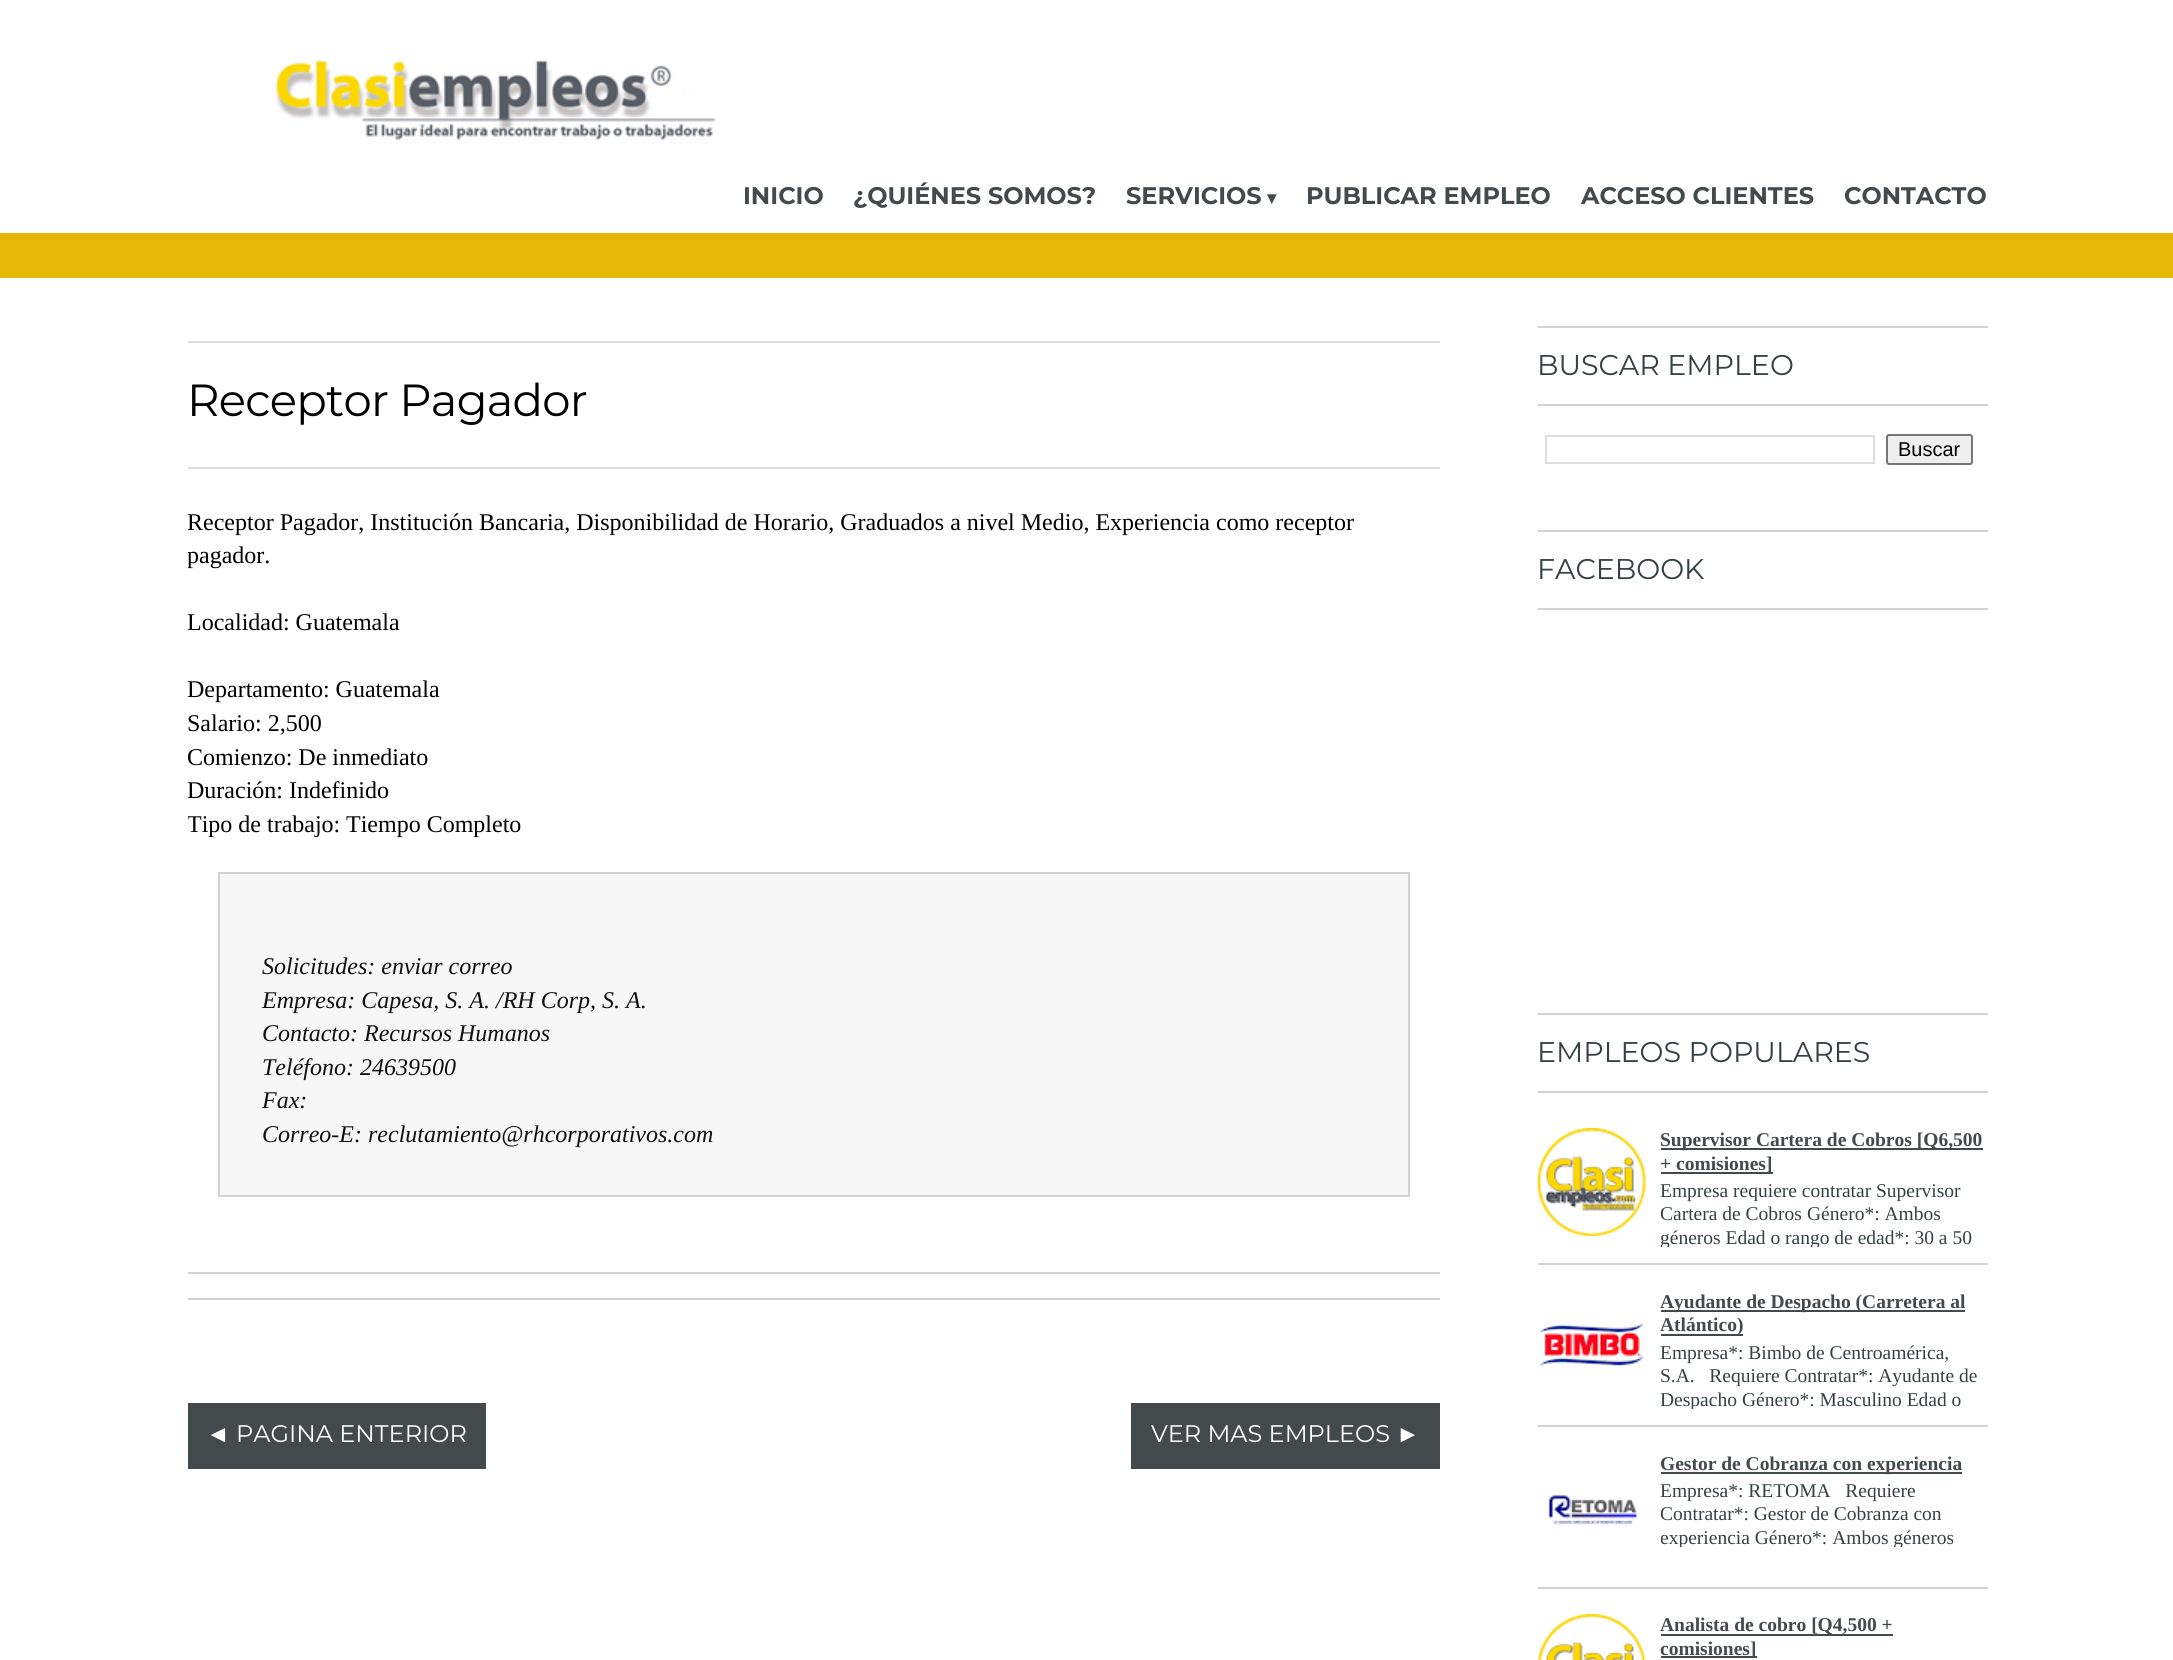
import math
import cairo


def write_spaced(ctx, x, y, s, letter, word):
	ctx.move_to(x, y)
	for ch in s:
		ctx.show_text(ch)
		ctx.rel_move_to(letter + word * (ch == ' '), 0)

def round_path(ctx, x, y, w, h, r):
	ctx.new_sub_path()
	for i, (u, v) in enumerate([(x + w - r, y + h - r), (x + r, y + h - r), (x + r, y + r), (x + w - r, y + r)]):
		ctx.arc(u, v, r, i * math.pi / 2, (i + 1) * math.pi / 2)
	ctx.close_path()

def paste(ctx, path, x, y, w, h):
	ctx.save()
	ctx.set_source_surface(cairo.ImageSurface.create_from_png(path), x, y)
	ctx.rectangle(x, y, w, h)
	ctx.fill()
	ctx.restore()

def draw(ctx):
	ctx.set_source_rgb(1, 1, 1)
	ctx.paint()
	paste(ctx, 'media/1.png', 275, 60, 441, 80)
	ctx.select_font_face('Montserrat', cairo.FONT_SLANT_NORMAL, cairo.FONT_WEIGHT_BOLD)
	ctx.set_font_size(24)
	ctx.set_source_rgb(0.267, 0.286, 0.294)
	for x, y, s in [
		(743, 204, 'INICIO'),
		(853, 204, '¿QUIÉNES SOMOS?'),
		(1126, 204, 'SERVICIOS'),
	]:
		ctx.move_to(x, y)
		ctx.show_text(s)
	ctx.select_font_face('DejaVu Sans', cairo.FONT_SLANT_NORMAL, cairo.FONT_WEIGHT_BOLD)
	ctx.set_font_size(18)
	ctx.move_to(1267, 204)
	ctx.show_text('▾')
	ctx.select_font_face('Montserrat', cairo.FONT_SLANT_NORMAL, cairo.FONT_WEIGHT_BOLD)
	ctx.set_font_size(24)
	for x, y, s in [
		(1306, 204, 'PUBLICAR EMPLEO'),
		(1581, 204, 'ACCESO CLIENTES'),
		(1844, 204, 'CONTACTO'),
	]:
		ctx.move_to(x, y)
		ctx.show_text(s)
	ctx.set_source_rgb(0.902, 0.718, 0.027)
	ctx.rectangle(0, 233, 2173, 45)
	ctx.fill()
	ctx.set_source_rgb(0.867, 0.867, 0.867)
	ctx.rectangle(188, 341, 1252, 2)
	ctx.fill()
	ctx.select_font_face('Montserrat')
	ctx.set_font_size(45)
	ctx.set_source_rgb(0, 0, 0)
	write_spaced(ctx, 187, 416, 'Receptor Pagador', -0.75, 0)
	ctx.set_source_rgb(0.867, 0.867, 0.867)
	ctx.rectangle(188, 467, 1252, 2)
	ctx.fill()
	ctx.select_font_face('Liberation Serif')
	ctx.set_font_size(24)
	ctx.set_source_rgb(0, 0, 0)
	ctx.move_to(187, 530)
	ctx.show_text('Receptor Pagador, Institución Bancaria, Disponibilidad de Horario, Graduados a nivel Medio, Experiencia como receptor')
	ctx.save()
	ctx.rectangle(188, 326, 1305, 1197)
	ctx.clip()
	ctx.move_to(187, 563)
	ctx.show_text('pagador.')
	ctx.restore()
	for x, y, s in [
		(187, 630, 'Localidad: Guatemala'),
		(187, 697, 'Departamento: Guatemala'),
		(187, 731, 'Salario: 2,500'),
	]:
		ctx.move_to(x, y)
		ctx.show_text(s)
	ctx.save()
	ctx.rectangle(188, 326, 1305, 1197)
	ctx.clip()
	ctx.move_to(187, 765)
	ctx.show_text('Comienzo: De inmediato')
	ctx.restore()
	ctx.move_to(187, 798)
	ctx.show_text('Duración: Indefinido')
	ctx.save()
	ctx.rectangle(188, 326, 1305, 1197)
	ctx.clip()
	ctx.move_to(187, 832)
	ctx.show_text('Tipo de trabajo:')
	ctx.restore()
	ctx.move_to(346, 832)
	ctx.show_text('Tiempo Completo')
	ctx.set_source_rgb(0.965, 0.965, 0.965)
	ctx.rectangle(219, 873, 1190, 323)
	ctx.fill_preserve()
	ctx.set_source_rgb(0.824, 0.824, 0.824)
	ctx.stroke()
	ctx.select_font_face('Liberation Serif', cairo.FONT_SLANT_ITALIC)
	ctx.set_source_rgb(0.067, 0.067, 0.067)
	for x, y, s in [
		(262, 974, 'Solicitudes: enviar correo'),
		(262, 1008, 'Empresa: Capesa, S. A. /RH Corp, S. A.'),
		(262, 1041, 'Contacto: Recursos Humanos'),
		(262, 1075, 'Teléfono: 24639500'),
		(262, 1108, 'Fax:'),
		(262, 1142, 'Correo-E: reclutamiento@rhcorporativos.com'),
	]:
		ctx.move_to(x, y)
		ctx.show_text(s)
	ctx.set_source_rgb(0.824, 0.824, 0.824)
	ctx.rectangle(188, 1272, 1252, 2)
	ctx.rectangle(188, 1298, 1252, 2)
	ctx.fill()
	ctx.set_source_rgb(0.267, 0.286, 0.294)
	ctx.rectangle(188, 1403, 298, 66)
	ctx.fill()
	ctx.select_font_face('Liberation Sans')
	ctx.set_source_rgb(1, 1, 1)
	ctx.move_to(206, 1442)
	ctx.show_text('◄')
	ctx.select_font_face('Montserrat')
	ctx.move_to(236, 1442)
	ctx.show_text('PAGINA ENTERIOR')
	ctx.set_source_rgb(0.267, 0.286, 0.294)
	ctx.rectangle(1131, 1403, 309, 66)
	ctx.fill()
	ctx.set_source_rgb(1, 1, 1)
	ctx.move_to(1151, 1442)
	ctx.show_text('VER MAS EMPLEOS')
	ctx.select_font_face('Liberation Sans')
	ctx.move_to(1396, 1442)
	ctx.show_text('►')
	ctx.set_source_rgb(0.824, 0.824, 0.824)
	ctx.rectangle(1538, 326, 450, 2)
	ctx.fill()
	ctx.rectangle(1538, 404, 450, 2)
	ctx.fill()
	ctx.select_font_face('Montserrat')
	ctx.set_font_size(28.5)
	ctx.set_source_rgb(0.216, 0.255, 0.259)
	ctx.move_to(1537, 375)
	ctx.show_text('BUSCAR EMPLEO')
	ctx.rectangle(1546, 436, 328, 27)
	ctx.set_source_rgb(0.867, 0.867, 0.867)
	ctx.stroke()
	ctx.set_source_rgb(0.937, 0.937, 0.937)
	round_path(ctx, 1887, 435, 85, 29, 2)
	ctx.fill_preserve()
	ctx.set_source_rgb(0.463, 0.463, 0.463)
	ctx.stroke()
	ctx.select_font_face('Liberation Sans')
	ctx.set_font_size(20)
	ctx.set_source_rgb(0, 0, 0)
	ctx.move_to(1898, 456)
	ctx.show_text('Buscar')
	ctx.set_source_rgb(0.824, 0.824, 0.824)
	ctx.rectangle(1538, 530, 450, 2)
	ctx.fill()
	ctx.rectangle(1538, 608, 450, 2)
	ctx.fill()
	ctx.select_font_face('Montserrat')
	ctx.set_font_size(28.5)
	ctx.set_source_rgb(0.216, 0.255, 0.259)
	ctx.move_to(1537, 579)
	ctx.show_text('FACEBOOK')
	ctx.set_source_rgb(0.824, 0.824, 0.824)
	ctx.rectangle(1538, 1013, 450, 2)
	ctx.fill()
	ctx.rectangle(1538, 1091, 450, 2)
	ctx.fill()
	ctx.set_source_rgb(0.216, 0.255, 0.259)
	ctx.move_to(1537, 1062)
	ctx.show_text('EMPLEOS POPULARES')
	ctx.set_source_rgb(0.824, 0.824, 0.824)
	ctx.rectangle(1538, 1263, 450, 2)
	ctx.fill()
	paste(ctx, 'media/2.png', 1537, 1128, 109, 108)
	ctx.set_source_rgb(0.267, 0.286, 0.294)
	ctx.rectangle(1661, 1148, 322, 2)
	ctx.fill()
	ctx.select_font_face('Liberation Serif', cairo.FONT_SLANT_NORMAL, cairo.FONT_WEIGHT_BOLD)
	ctx.set_font_size(19.5)
	ctx.move_to(1660, 1146)
	ctx.show_text('Supervisor Cartera de Cobros [Q6,500')
	ctx.rectangle(1661, 1172, 112, 2)
	ctx.fill()
	ctx.move_to(1660, 1170)
	ctx.show_text('+ comisiones]')
	ctx.select_font_face('Liberation Serif')
	ctx.set_source_rgb(0.216, 0.255, 0.259)
	ctx.move_to(1660, 1197)
	ctx.show_text('Empresa requiere contratar Supervisor')
	ctx.save()
	ctx.rectangle(1661, 1179, 327, 68)
	ctx.clip()
	ctx.move_to(1660, 1220)
	ctx.show_text('Cartera de Cobros')
	ctx.restore()
	ctx.move_to(1807, 1220)
	ctx.show_text('Género*: Ambos')
	ctx.save()
	ctx.rectangle(1661, 1179, 327, 68)
	ctx.clip()
	ctx.move_to(1660, 1244)
	ctx.show_text('géneros Edad o rango de edad*: 30 a 50')
	ctx.restore()
	ctx.set_source_rgb(0.824, 0.824, 0.824)
	ctx.rectangle(1538, 1425, 450, 2)
	ctx.fill()
	ctx.set_source_rgb(0.267, 0.286, 0.294)
	ctx.rectangle(1661, 1310, 304, 2)
	ctx.fill()
	ctx.select_font_face('Liberation Serif', cairo.FONT_SLANT_NORMAL, cairo.FONT_WEIGHT_BOLD)
	ctx.move_to(1660, 1308)
	ctx.show_text('Ayudante de Despacho (Carretera al')
	ctx.rectangle(1661, 1334, 82, 2)
	ctx.fill()
	ctx.move_to(1660, 1331)
	ctx.show_text('Atlántico)')
	paste(ctx, 'media/3.png', 1540, 1323, 104, 43)
	ctx.select_font_face('Liberation Serif')
	ctx.set_source_rgb(0.216, 0.255, 0.259)
	ctx.move_to(1660, 1359)
	ctx.show_text('Empresa*: Bimbo de Centroamérica,')
	ctx.move_to(1660, 1382)
	ctx.show_text('S.A.   Requiere Contratar*: Ayudante de')
	ctx.save()
	ctx.rectangle(1661, 1341, 327, 68)
	ctx.clip()
	ctx.move_to(1660, 1406)
	ctx.show_text('Despacho')
	ctx.restore()
	ctx.move_to(1742, 1406)
	ctx.show_text('Género*: Masculino Edad o')
	ctx.set_source_rgb(0.824, 0.824, 0.824)
	ctx.rectangle(1538, 1587, 450, 2)
	ctx.fill()
	ctx.set_source_rgb(0.267, 0.286, 0.294)
	ctx.rectangle(1661, 1472, 301, 2)
	ctx.fill()
	ctx.select_font_face('Liberation Serif', cairo.FONT_SLANT_NORMAL, cairo.FONT_WEIGHT_BOLD)
	ctx.move_to(1660, 1470)
	ctx.show_text('Gestor de Cobranza con experiencia')
	paste(ctx, 'media/4.png', 1548, 1495, 89, 30)
	ctx.select_font_face('Liberation Serif')
	ctx.set_source_rgb(0.216, 0.255, 0.259)
	ctx.move_to(1660, 1497)
	ctx.show_text('Empresa*: RETOMA   Requiere')
	ctx.save()
	ctx.rectangle(1661, 1479, 327, 68)
	ctx.clip()
	ctx.move_to(1660, 1520)
	ctx.show_text('Contratar*: Gestor de Cobranza con')
	ctx.move_to(1660, 1544)
	ctx.show_text('experiencia Género*: Ambos géneros')
	ctx.restore()
	paste(ctx, 'media/5.png', 1537, 1614, 109, 46)
	ctx.set_source_rgb(0.267, 0.286, 0.294)
	ctx.rectangle(1661, 1634, 232, 2)
	ctx.fill()
	ctx.select_font_face('Liberation Serif', cairo.FONT_SLANT_NORMAL, cairo.FONT_WEIGHT_BOLD)
	ctx.move_to(1660, 1631)
	ctx.show_text('Analista de cobro [Q4,500 +')
	ctx.rectangle(1661, 1656, 96, 2)
	ctx.fill()
	ctx.move_to(1660, 1655)
	ctx.show_text('comisiones]')


surface = cairo.ImageSurface(cairo.FORMAT_RGB24, 2173, 1660)
ctx = cairo.Context(surface)
options = cairo.FontOptions()
options.set_hint_metrics(cairo.HINT_METRICS_OFF)
options.set_hint_style(cairo.HINT_STYLE_NONE)
ctx.set_font_options(options)
ctx.set_miter_limit(4)
draw(ctx)
surface.write_to_png('image.png')
